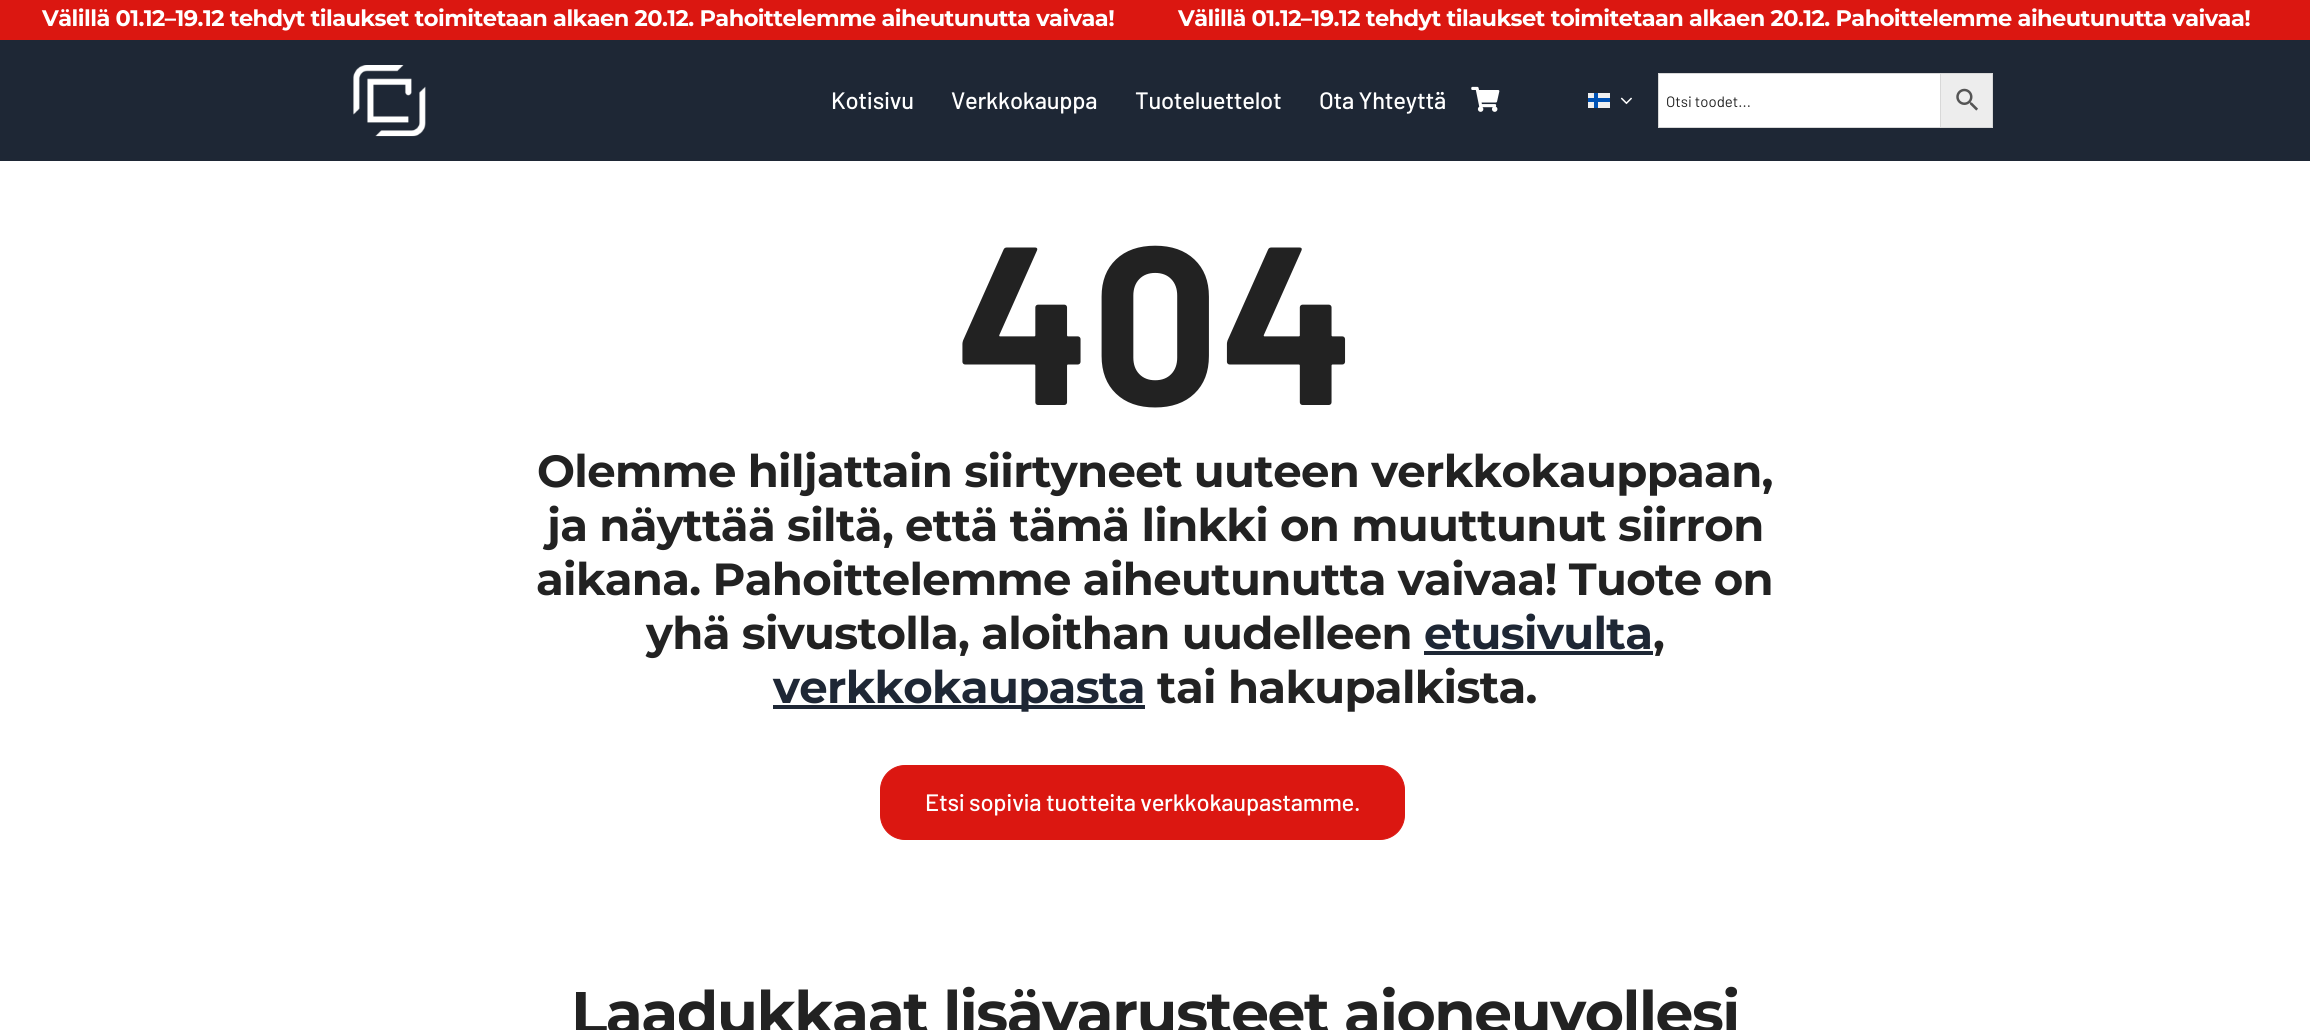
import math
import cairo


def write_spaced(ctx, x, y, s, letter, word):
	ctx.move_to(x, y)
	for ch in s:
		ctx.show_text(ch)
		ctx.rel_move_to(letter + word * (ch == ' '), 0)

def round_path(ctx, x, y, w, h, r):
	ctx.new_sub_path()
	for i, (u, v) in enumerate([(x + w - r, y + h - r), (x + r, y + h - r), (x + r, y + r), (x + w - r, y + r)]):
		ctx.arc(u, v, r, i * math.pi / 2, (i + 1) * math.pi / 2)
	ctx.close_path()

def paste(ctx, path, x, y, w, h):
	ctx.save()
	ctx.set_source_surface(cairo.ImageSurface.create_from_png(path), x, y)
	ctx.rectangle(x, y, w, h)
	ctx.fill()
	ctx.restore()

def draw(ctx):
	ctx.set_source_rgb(1, 1, 1)
	ctx.paint()
	ctx.set_source_rgb(0.859, 0.09, 0.067)
	ctx.rectangle(0, 0, 2310, 40)
	ctx.fill()
	ctx.select_font_face('Montserrat', cairo.FONT_SLANT_NORMAL, cairo.FONT_WEIGHT_BOLD)
	ctx.set_font_size(22.5)
	ctx.set_source_rgb(1, 1, 1)
	write_spaced(ctx, 42, 26, 'Välillä 01.12–19.12 tehdyt tilaukset toimitetaan alkaen 20.12. Pahoittelemme aiheutunutta vaivaa!           Välillä 01.12–19.12 tehdyt tilaukset toimitetaan alkaen 20.12. Pahoittelemme aiheutunutta vaivaa!', -0.56, 0)
	ctx.set_source_rgb(0.118, 0.153, 0.208)
	ctx.rectangle(0, 40, 2310, 121)
	ctx.fill()
	paste(ctx, 'media/1.png', 353, 65, 73, 72)
	ctx.select_font_face('Barlow Medium')
	ctx.set_font_size(23.75)
	ctx.set_source_rgb(1, 1, 1)
	for x, y, s in [
		(831, 109, 'Kotisivu'),
		(951, 109, 'Verkkokauppa'),
		(1135, 109, 'Tuoteluettelot'),
		(1319, 109, 'Ota Yhteyttä'),
	]:
		write_spaced(ctx, x, y, s, -0.25, 0)
	paste(ctx, 'media/2.png', 1471, 86, 29, 26)
	ctx.set_source_rgb(0.941, 0.941, 0.941)
	ctx.rectangle(1588, 93, 22, 15)
	ctx.fill()
	ctx.set_source_rgb(0, 0.322, 0.706)
	ctx.rectangle(1588, 98, 22, 4)
	ctx.rectangle(1594, 93, 4, 15)
	ctx.fill()
	paste(ctx, 'media/3.png', 1620, 97, 12, 8)
	ctx.set_source_rgb(0.929, 0.929, 0.929)
	ctx.rectangle(1940.5, 73.5, 52, 54)
	ctx.fill_preserve()
	ctx.set_source_rgb(0.847, 0.847, 0.847)
	ctx.set_line_width(1)
	ctx.stroke()
	ctx.set_source_rgb(1, 1, 1)
	ctx.rectangle(1658.5, 73.5, 282, 54)
	ctx.fill_preserve()
	ctx.set_source_rgb(0.847, 0.847, 0.847)
	ctx.stroke()
	ctx.select_font_face('Barlow')
	ctx.set_font_size(15)
	ctx.set_source_rgb(0.133, 0.133, 0.133)
	ctx.move_to(1666, 107)
	ctx.show_text('Otsi toodet...')
	paste(ctx, 'media/4.png', 1956, 88, 22, 23)
	ctx.select_font_face('Barlow', cairo.FONT_SLANT_NORMAL, cairo.FONT_WEIGHT_BOLD)
	ctx.set_font_size(225)
	ctx.move_to(955, 405)
	ctx.show_text('404')
	ctx.select_font_face('Montserrat', cairo.FONT_SLANT_NORMAL, cairo.FONT_WEIGHT_BOLD)
	ctx.set_font_size(45)
	for x, y, s in [
		(537, 487, 'Olemme hiljattain siirtyneet uuteen verkkokauppaan,'),
		(547, 541, 'ja näyttää siltä, että tämä linkki on muuttunut siirron'),
		(536, 595, 'aikana. Pahoittelemme aiheutunutta vaivaa! Tuote on'),
		(646, 649, 'yhä sivustolla, aloithan uudelleen'),
	]:
		write_spaced(ctx, x, y, s, -0.68, 0)
	ctx.set_source_rgb(0.118, 0.153, 0.208)
	write_spaced(ctx, 1424, 649, 'etusivulta', -0.68, 0)
	ctx.set_source_rgb(0.133, 0.133, 0.133)
	write_spaced(ctx, 1653, 649, ',', -0.68, 0)
	ctx.set_source_rgb(0.118, 0.153, 0.208)
	ctx.rectangle(1424, 651, 229, 4)
	ctx.fill()
	ctx.rectangle(773, 705, 372, 4)
	ctx.fill()
	write_spaced(ctx, 773, 703, 'verkkokaupasta', -0.68, 0)
	ctx.set_source_rgb(0.133, 0.133, 0.133)
	write_spaced(ctx, 1157, 703, 'tai hakupalkista.', -0.68, 0)
	ctx.set_source_rgb(0.859, 0.09, 0.067)
	round_path(ctx, 880.5, 765.5, 524, 74, 24.5)
	ctx.fill_preserve()
	ctx.stroke()
	ctx.select_font_face('Barlow Medium')
	ctx.set_font_size(23.75)
	ctx.set_source_rgb(1, 1, 1)
	write_spaced(ctx, 925, 811, 'Etsi sopivia tuotteita verkkokaupastamme.', -0.25, 0)
	ctx.select_font_face('Montserrat', cairo.FONT_SLANT_NORMAL, cairo.FONT_WEIGHT_BOLD)
	ctx.set_font_size(60)
	ctx.set_source_rgb(0.133, 0.133, 0.133)
	write_spaced(ctx, 571, 1034, 'Laadukkaat lisävarusteet ajoneuvollesi', -1.5, 0)


surface = cairo.ImageSurface(cairo.FORMAT_RGB24, 2310, 1030)
ctx = cairo.Context(surface)
options = cairo.FontOptions()
options.set_hint_metrics(cairo.HINT_METRICS_OFF)
options.set_hint_style(cairo.HINT_STYLE_NONE)
ctx.set_font_options(options)
ctx.set_miter_limit(4)
draw(ctx)
surface.write_to_png('image.png')
